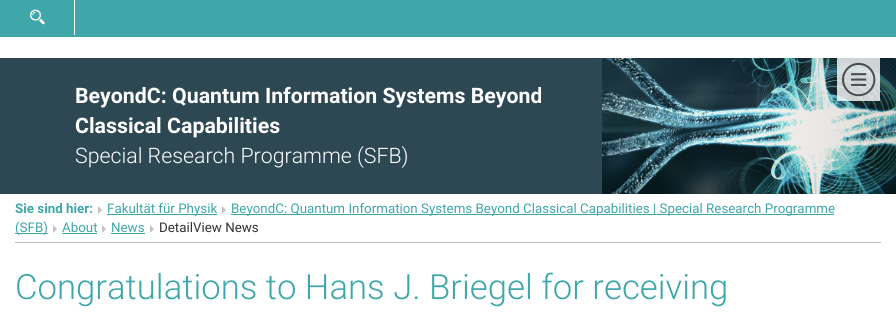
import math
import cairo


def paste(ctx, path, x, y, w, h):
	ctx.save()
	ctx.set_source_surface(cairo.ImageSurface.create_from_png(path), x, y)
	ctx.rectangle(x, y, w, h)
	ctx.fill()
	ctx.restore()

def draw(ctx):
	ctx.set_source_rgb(1, 1, 1)
	ctx.paint()
	ctx.set_source_rgb(0.247, 0.655, 0.663)
	ctx.rectangle(0, 0, 896, 37)
	ctx.fill()
	ctx.set_source_rgb(1, 1, 1)
	ctx.rectangle(74, 0, 1, 35)
	ctx.fill()
	paste(ctx, 'media/1.png', 30, 9, 15, 16)
	paste(ctx, 'media/3.png', 602, 58, 294, 136)
	ctx.set_source_rgba(1, 1, 1, 0.8)
	ctx.rectangle(837, 58, 43, 43)
	ctx.fill()
	paste(ctx, 'media/2.png', 842, 62, 34, 35)
	ctx.set_source_rgb(0.18, 0.282, 0.325)
	ctx.rectangle(0, 58, 602, 136)
	ctx.fill()
	ctx.select_font_face('Roboto', cairo.FONT_SLANT_NORMAL, cairo.FONT_WEIGHT_BOLD)
	ctx.set_font_size(21.3)
	ctx.set_source_rgb(1, 1, 1)
	ctx.move_to(75, 103)
	ctx.show_text('BeyondC: Quantum Information Systems Beyond')
	ctx.move_to(75, 133)
	ctx.show_text('Classical Capabilities')
	ctx.select_font_face('Roboto Light')
	ctx.move_to(75, 163)
	ctx.show_text('Special Research Programme (SFB)')
	ctx.select_font_face('Roboto', cairo.FONT_SLANT_NORMAL, cairo.FONT_WEIGHT_BOLD)
	ctx.set_font_size(13.35)
	ctx.set_source_rgb(0.247, 0.655, 0.663)
	ctx.move_to(15, 213)
	ctx.show_text('Sie sind hier:')
	ctx.rectangle(107, 214, 110, 1)
	ctx.fill()
	ctx.select_font_face('Roboto')
	ctx.move_to(107, 213)
	ctx.show_text('Fakultät für Physik')
	ctx.set_source_rgb(0.761, 0.761, 0.761)
	ctx.new_path()
	ctx.move_to(98, 206)
	ctx.line_to(98, 214)
	ctx.line_to(102, 210)
	ctx.close_path()
	ctx.fill()
	ctx.set_source_rgb(0.247, 0.655, 0.663)
	ctx.rectangle(231, 214, 603, 1)
	ctx.fill()
	ctx.move_to(231, 213)
	ctx.show_text('BeyondC: Quantum Information Systems Beyond Classical Capabilities | Special Research Programme')
	ctx.set_source_rgb(0.761, 0.761, 0.761)
	ctx.new_path()
	ctx.move_to(222, 206)
	ctx.line_to(222, 214)
	ctx.line_to(226, 210)
	ctx.close_path()
	ctx.fill()
	ctx.set_source_rgb(0.247, 0.655, 0.663)
	ctx.rectangle(15, 233, 33, 1)
	ctx.fill()
	ctx.move_to(15, 232)
	ctx.show_text('(SFB)')
	ctx.move_to(62, 232)
	ctx.show_text('About')
	ctx.set_source_rgb(0.761, 0.761, 0.761)
	ctx.new_path()
	ctx.move_to(53, 225)
	ctx.line_to(53, 233)
	ctx.line_to(57, 229)
	ctx.close_path()
	ctx.fill()
	ctx.set_source_rgb(0.247, 0.655, 0.663)
	ctx.rectangle(62, 233, 35, 1)
	ctx.fill()
	ctx.move_to(111, 232)
	ctx.show_text('News')
	ctx.set_source_rgb(0.761, 0.761, 0.761)
	ctx.new_path()
	ctx.move_to(102, 225)
	ctx.line_to(102, 233)
	ctx.line_to(106, 229)
	ctx.close_path()
	ctx.fill()
	ctx.set_source_rgb(0.247, 0.655, 0.663)
	ctx.rectangle(111, 233, 34, 1)
	ctx.fill()
	ctx.set_source_rgb(0.2, 0.2, 0.2)
	ctx.move_to(159, 232)
	ctx.show_text('DetailView News')
	ctx.set_source_rgb(0.761, 0.761, 0.761)
	ctx.new_path()
	ctx.move_to(150, 225)
	ctx.line_to(150, 233)
	ctx.line_to(154, 229)
	ctx.close_path()
	ctx.fill()
	ctx.set_source_rgb(0.741, 0.741, 0.741)
	ctx.rectangle(15, 242, 866, 1)
	ctx.fill()
	ctx.select_font_face('Roboto Light')
	ctx.set_font_size(34.7)
	ctx.set_source_rgb(0.247, 0.655, 0.663)
	ctx.move_to(15, 299)
	ctx.show_text('Congratulations to Hans J. Briegel for receiving')


surface = cairo.ImageSurface(cairo.FORMAT_RGB24, 896, 322)
ctx = cairo.Context(surface)
options = cairo.FontOptions()
options.set_hint_metrics(cairo.HINT_METRICS_OFF)
options.set_hint_style(cairo.HINT_STYLE_NONE)
ctx.set_font_options(options)
ctx.set_miter_limit(4)
draw(ctx)
surface.write_to_png('image.png')
